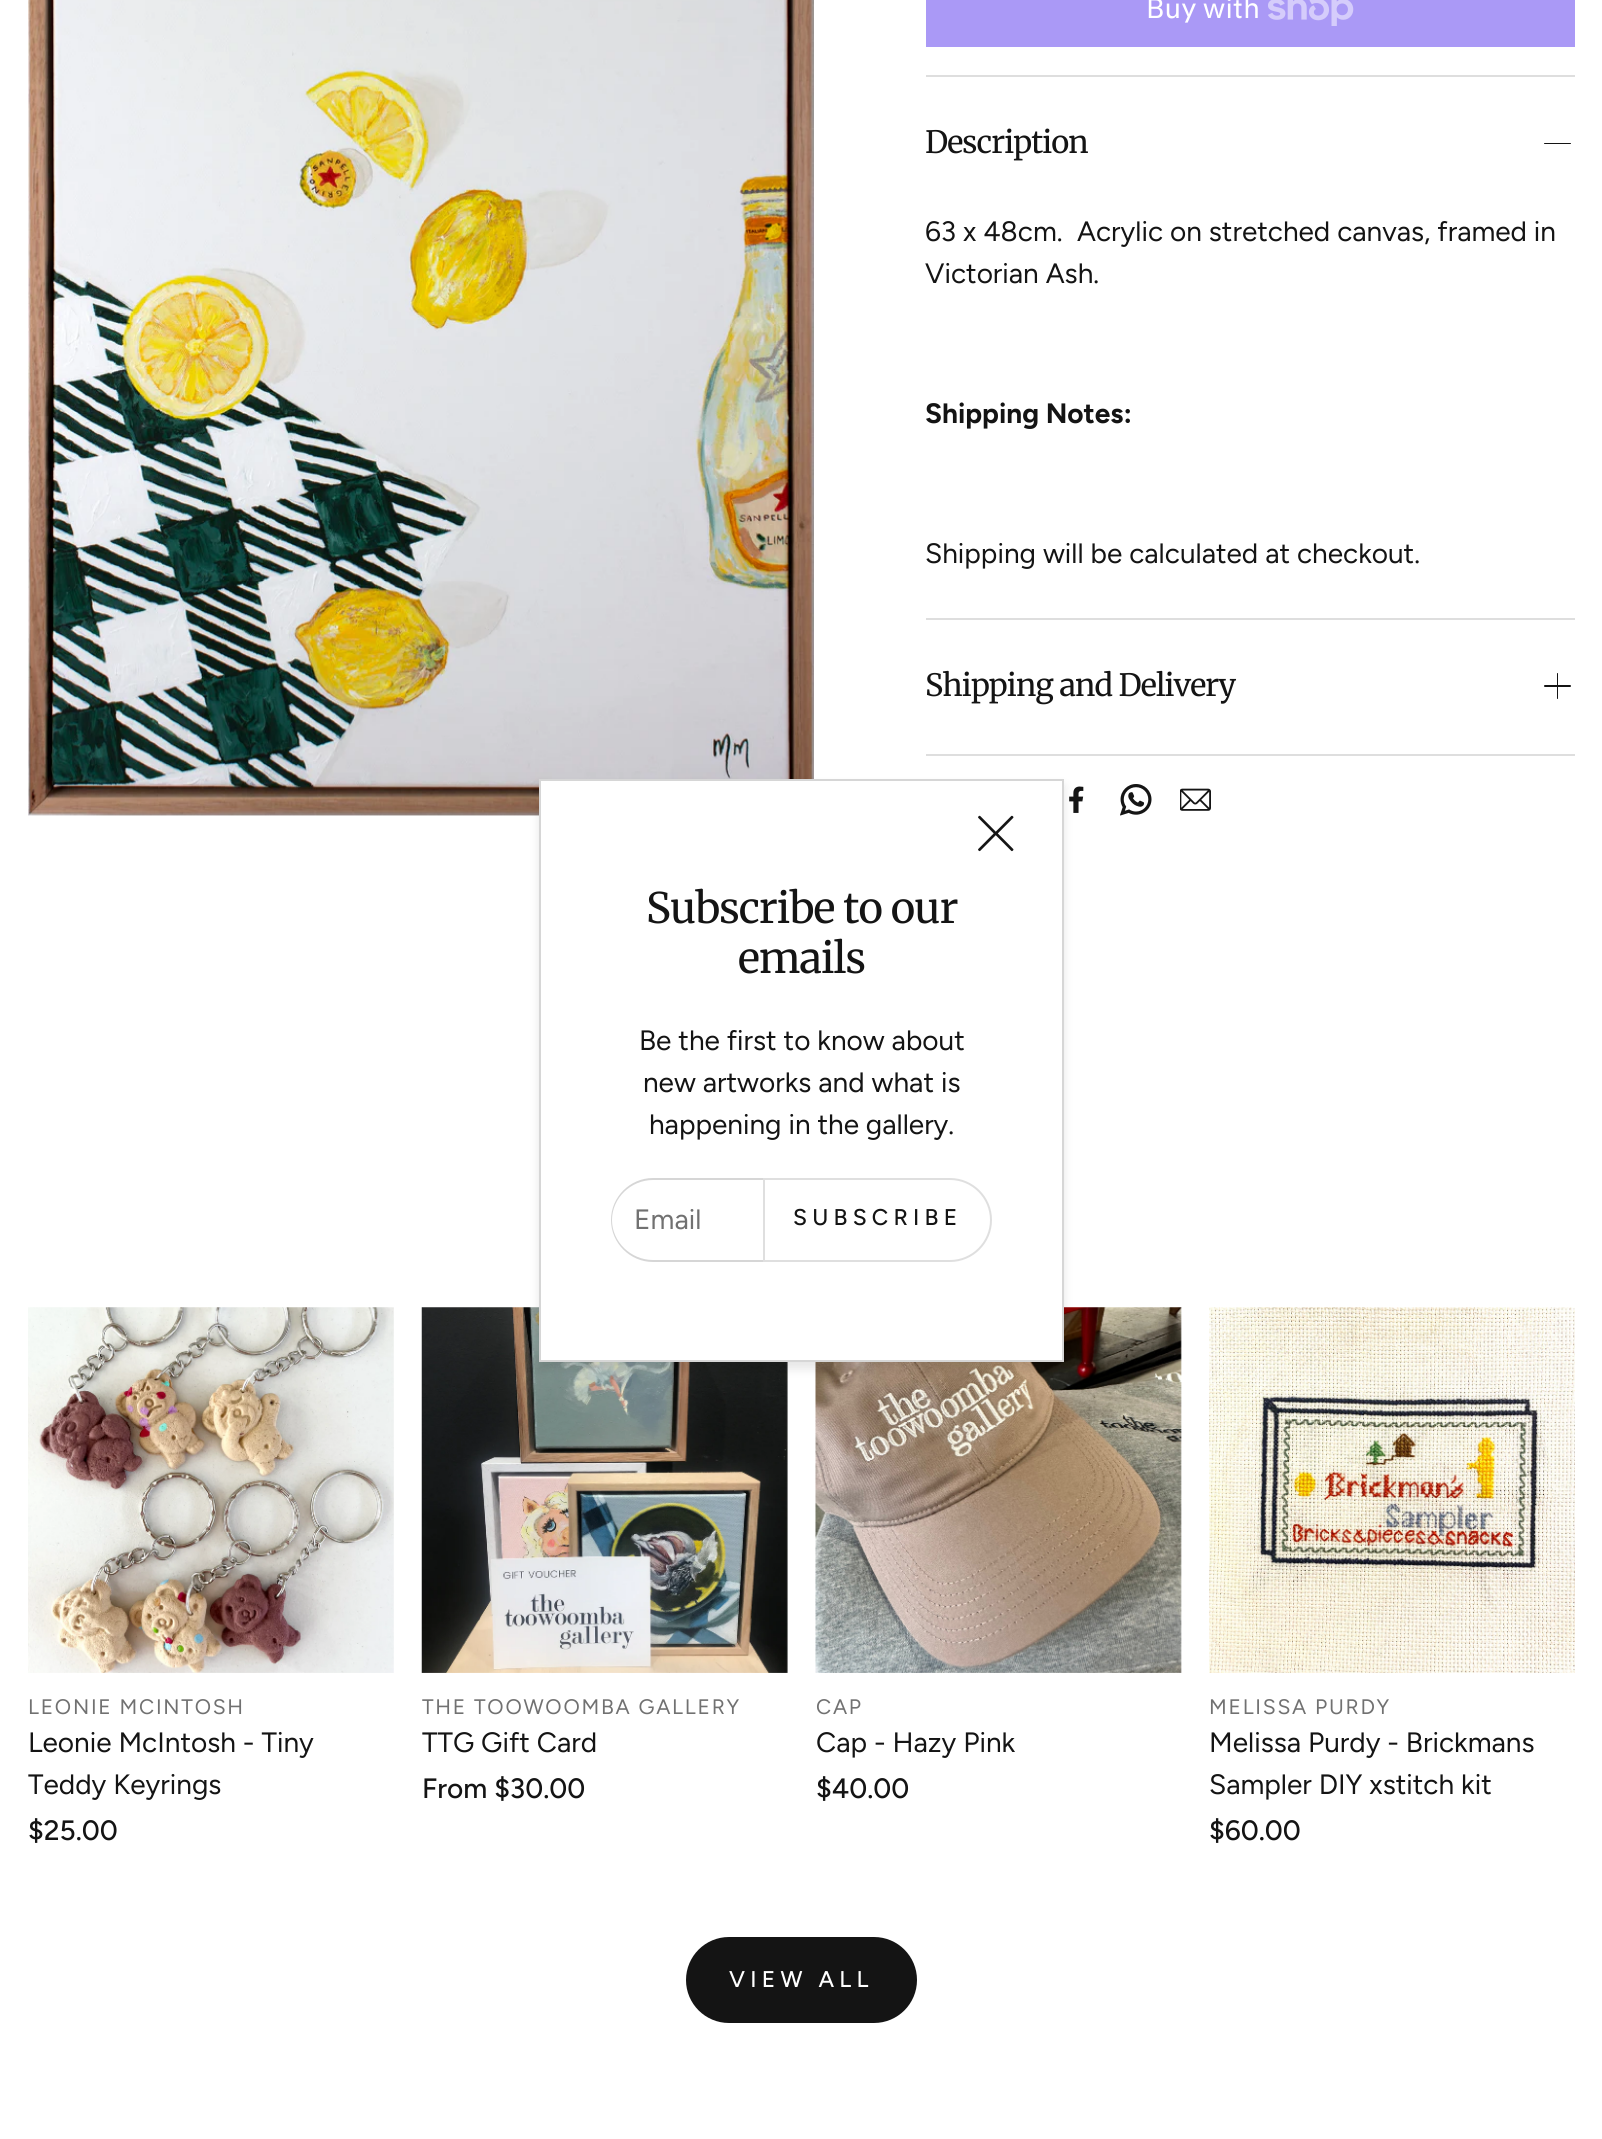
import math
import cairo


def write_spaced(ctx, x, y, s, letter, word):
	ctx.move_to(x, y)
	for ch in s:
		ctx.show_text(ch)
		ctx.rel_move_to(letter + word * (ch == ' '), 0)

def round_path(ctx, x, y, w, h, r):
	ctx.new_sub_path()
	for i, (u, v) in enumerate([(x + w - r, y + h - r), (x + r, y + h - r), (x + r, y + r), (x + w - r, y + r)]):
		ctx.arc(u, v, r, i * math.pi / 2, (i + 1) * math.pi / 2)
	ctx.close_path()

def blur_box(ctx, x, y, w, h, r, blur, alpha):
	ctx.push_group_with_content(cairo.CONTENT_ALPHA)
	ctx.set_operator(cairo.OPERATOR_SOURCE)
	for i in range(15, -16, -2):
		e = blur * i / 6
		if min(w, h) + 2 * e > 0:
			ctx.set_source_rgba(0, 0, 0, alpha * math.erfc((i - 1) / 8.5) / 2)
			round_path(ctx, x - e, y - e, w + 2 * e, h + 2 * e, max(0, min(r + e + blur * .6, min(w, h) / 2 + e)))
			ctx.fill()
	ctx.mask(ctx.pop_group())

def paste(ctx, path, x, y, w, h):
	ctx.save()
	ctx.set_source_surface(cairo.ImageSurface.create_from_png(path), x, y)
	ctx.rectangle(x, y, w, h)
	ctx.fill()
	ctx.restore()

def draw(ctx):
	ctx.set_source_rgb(1, 1, 1)
	ctx.paint()
	paste(ctx, 'media/1.png', 28, 0, 786, 816)
	ctx.set_source_rgb(0.667, 0.6, 0.961)
	ctx.rectangle(926, 0, 649, 47)
	ctx.fill()
	ctx.select_font_face('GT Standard')
	ctx.set_font_size(28)
	ctx.set_source_rgb(1, 1, 1)
	ctx.move_to(1146, 18)
	ctx.show_text('Buy with')
	paste(ctx, 'media/2.png', 1268, 0, 86, 26)
	ctx.set_source_rgb(0.871, 0.871, 0.871)
	ctx.rectangle(926, 75, 649, 2)
	ctx.fill()
	ctx.select_font_face('Merriweather')
	ctx.set_font_size(30.75)
	ctx.set_source_rgb(0.082, 0.082, 0.082)
	write_spaced(ctx, 925, 153, 'Description', -0.9, 0)
	round_path(ctx, 1544, 143, 27, 1, 0.5)
	ctx.fill()
	ctx.select_font_face('Figtree')
	ctx.set_font_size(28)
	for x, y, s in [
		(925, 241, '63 x 48cm.'),
		(1077, 241, 'Acrylic on stretched canvas, framed in'),
		(925, 283, 'Victorian Ash.'),
	]:
		ctx.move_to(x, y)
		ctx.show_text(s)
	ctx.select_font_face('Figtree', cairo.FONT_SLANT_NORMAL, cairo.FONT_WEIGHT_BOLD)
	ctx.move_to(925, 423)
	ctx.show_text('Shipping Notes:')
	ctx.select_font_face('Figtree')
	ctx.move_to(925, 563)
	ctx.show_text('Shipping will be calculated at checkout.')
	ctx.set_source_rgb(0.871, 0.871, 0.871)
	ctx.rectangle(926, 618, 649, 2)
	ctx.fill()
	ctx.select_font_face('Merriweather')
	ctx.set_font_size(30.75)
	ctx.set_source_rgb(0.082, 0.082, 0.082)
	write_spaced(ctx, 925, 696, 'Shipping and Delivery', -0.9, 0)
	round_path(ctx, 1544, 685, 27, 2, 1)
	ctx.fill()
	round_path(ctx, 1557, 673, 1, 26, 0.5)
	ctx.fill()
	ctx.set_source_rgb(0.871, 0.871, 0.871)
	ctx.rectangle(926, 754, 649, 2)
	ctx.fill()
	paste(ctx, 'media/3.png', 1069, 786, 15, 27)
	paste(ctx, 'media/4.png', 1120, 784, 32, 32)
	paste(ctx, 'media/5.png', 1180, 788, 31, 23)
	paste(ctx, 'media/6.png', 28, 1307, 366, 366)
	ctx.select_font_face('Figtree')
	ctx.set_font_size(21)
	ctx.set_source_rgb(0.443, 0.443, 0.443)
	write_spaced(ctx, 28, 1714, 'LEONIE MCINTOSH', 1.75, 0)
	ctx.set_font_size(28)
	ctx.set_source_rgb(0.082, 0.082, 0.082)
	ctx.move_to(28, 1752)
	ctx.show_text('Leonie McIntosh - Tiny')
	ctx.move_to(28, 1794)
	ctx.show_text('Teddy Keyrings')
	ctx.select_font_face('Figtree Medium')
	ctx.move_to(28, 1840)
	ctx.show_text('$25.00')
	paste(ctx, 'media/7.png', 421, 1307, 367, 366)
	ctx.select_font_face('Figtree')
	ctx.set_font_size(21)
	ctx.set_source_rgb(0.443, 0.443, 0.443)
	write_spaced(ctx, 422, 1714, 'THE TOOWOOMBA GALLERY', 1.75, 0)
	ctx.set_font_size(28)
	ctx.set_source_rgb(0.082, 0.082, 0.082)
	ctx.move_to(422, 1752)
	ctx.show_text('TTG Gift Card')
	ctx.select_font_face('Figtree Medium')
	ctx.move_to(422, 1798)
	ctx.show_text('From $30.00')
	paste(ctx, 'media/8.png', 815, 1307, 367, 366)
	ctx.select_font_face('Figtree')
	ctx.set_font_size(21)
	ctx.set_source_rgb(0.443, 0.443, 0.443)
	write_spaced(ctx, 816, 1714, 'CAP', 1.75, 0)
	ctx.set_font_size(28)
	ctx.set_source_rgb(0.082, 0.082, 0.082)
	ctx.move_to(816, 1752)
	ctx.show_text('Cap - Hazy Pink')
	ctx.select_font_face('Figtree Medium')
	ctx.move_to(816, 1798)
	ctx.show_text('$40.00')
	paste(ctx, 'media/9.png', 1209, 1307, 366, 366)
	ctx.select_font_face('Figtree')
	ctx.set_font_size(21)
	ctx.set_source_rgb(0.443, 0.443, 0.443)
	write_spaced(ctx, 1209, 1714, 'MELISSA PURDY', 1.75, 0)
	ctx.set_font_size(28)
	ctx.set_source_rgb(0.082, 0.082, 0.082)
	ctx.move_to(1209, 1752)
	ctx.show_text('Melissa Purdy - Brickmans')
	ctx.move_to(1209, 1794)
	ctx.show_text('Sampler DIY xstitch kit')
	ctx.select_font_face('Figtree Medium')
	ctx.move_to(1209, 1840)
	ctx.show_text('$60.00')
	round_path(ctx, 686, 1937, 231, 86, 43)
	ctx.fill()
	ctx.set_font_size(22.75)
	ctx.set_source_rgb(1, 1, 1)
	write_spaced(ctx, 729, 1987, 'VIEW ALL', 5.25, 0)
	ctx.set_source_rgb(0, 0, 0)
	blur_box(ctx, 539, 786, 525, 583, 0, 5, 0.1)
	ctx.set_source_rgb(1, 1, 1)
	ctx.rectangle(540, 780, 523, 581)
	ctx.fill_preserve()
	ctx.set_source_rgb(0.839, 0.839, 0.839)
	ctx.stroke()
	paste(ctx, 'media/10.png', 978, 815, 36, 37)
	ctx.select_font_face('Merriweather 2')
	ctx.set_font_size(42)
	ctx.set_source_rgb(0.082, 0.082, 0.082)
	write_spaced(ctx, 646, 923, 'Subscribe to our', -0.9, 0)
	write_spaced(ctx, 738, 973, 'emails', -0.9, 0)
	ctx.select_font_face('Figtree')
	ctx.set_font_size(28)
	for x, y, s in [
		(639, 1050, 'Be the first to know about'),
		(643, 1092, 'new artworks and what is'),
		(649, 1134, 'happening in the gallery.'),
	]:
		ctx.move_to(x, y)
		ctx.show_text(s)
	ctx.set_source_rgb(0.839, 0.839, 0.839)
	ctx.set_fill_rule(cairo.FILL_RULE_EVEN_ODD)
	ctx.new_path()
	ctx.move_to(653, 1178)
	ctx.line_to(763, 1178)
	ctx.line_to(763, 1262)
	ctx.line_to(653, 1262)
	ctx.curve_to(630, 1262, 611, 1243, 611, 1220)
	ctx.curve_to(611, 1197, 630, 1178, 653, 1178)
	ctx.close_path()
	ctx.move_to(653, 1180)
	ctx.line_to(763, 1180)
	ctx.line_to(763, 1260)
	ctx.line_to(653, 1260)
	ctx.curve_to(631, 1260, 612, 1242, 612, 1220)
	ctx.curve_to(612, 1198, 631, 1180, 653, 1180)
	ctx.close_path()
	ctx.fill()
	ctx.set_source_rgb(0.443, 0.443, 0.443)
	ctx.move_to(634, 1229)
	ctx.show_text('Email')
	ctx.new_path()
	ctx.move_to(764, 1179)
	ctx.line_to(950, 1179)
	ctx.curve_to(972.5, 1179, 991, 1197.5, 991, 1220)
	ctx.curve_to(991, 1242.5, 972.5, 1261, 950, 1261)
	ctx.line_to(764, 1261)
	ctx.close_path()
	ctx.set_source_rgb(0.875, 0.875, 0.875)
	ctx.stroke()
	ctx.select_font_face('Figtree Medium')
	ctx.set_font_size(22.75)
	ctx.set_source_rgb(0.082, 0.082, 0.082)
	write_spaced(ctx, 793, 1225, 'SUBSCRIBE', 5.25, 0)


surface = cairo.ImageSurface(cairo.FORMAT_RGB24, 1602, 2139)
ctx = cairo.Context(surface)
options = cairo.FontOptions()
options.set_hint_metrics(cairo.HINT_METRICS_OFF)
options.set_hint_style(cairo.HINT_STYLE_NONE)
ctx.set_font_options(options)
ctx.set_miter_limit(4)
draw(ctx)
surface.write_to_png('image.png')
